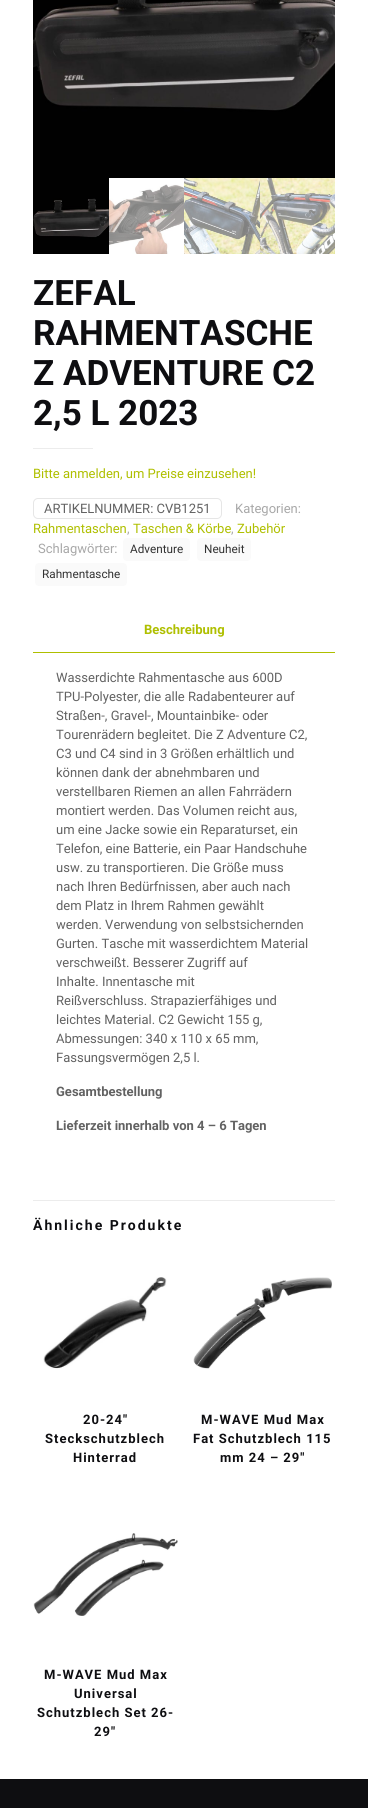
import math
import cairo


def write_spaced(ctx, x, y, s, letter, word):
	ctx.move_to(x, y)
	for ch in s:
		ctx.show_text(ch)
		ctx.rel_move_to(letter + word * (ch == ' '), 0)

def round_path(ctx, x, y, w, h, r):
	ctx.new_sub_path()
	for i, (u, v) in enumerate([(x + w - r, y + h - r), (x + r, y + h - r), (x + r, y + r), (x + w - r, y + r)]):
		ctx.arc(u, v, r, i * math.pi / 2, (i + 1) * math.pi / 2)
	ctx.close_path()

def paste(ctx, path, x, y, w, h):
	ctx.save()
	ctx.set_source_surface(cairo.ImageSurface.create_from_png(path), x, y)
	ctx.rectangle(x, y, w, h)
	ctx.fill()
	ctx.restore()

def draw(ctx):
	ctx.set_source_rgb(1, 1, 1)
	ctx.paint()
	paste(ctx, 'media/1.png', 33, 0, 302, 178)
	paste(ctx, 'media/2.png', 33, 178, 76, 76)
	paste(ctx, 'media/3.png', 109, 184, 75, 70)
	paste(ctx, 'media/4.png', 184, 178, 76, 76)
	paste(ctx, 'media/5.png', 260, 178, 75, 76)
	ctx.select_font_face('Roboto', cairo.FONT_SLANT_NORMAL, cairo.FONT_WEIGHT_BOLD)
	ctx.set_font_size(35)
	ctx.set_source_rgb(0.055, 0.055, 0.067)
	for x, y, s in [
		(33, 305, 'ZEFAL'),
		(33, 345, 'RAHMENTASCHE'),
		(33, 385, 'Z ADVENTURE C2'),
		(33, 425, '2,5 L 2023'),
	]:
		ctx.move_to(x, y)
		ctx.show_text(s)
	ctx.set_source_rgb(0.922, 0.922, 0.922)
	ctx.rectangle(33, 448, 60, 1)
	ctx.fill()
	ctx.select_font_face('Roboto')
	ctx.set_font_size(13)
	ctx.set_source_rgb(0.686, 0.749, 0)
	ctx.move_to(33, 478)
	ctx.show_text('Bitte anmelden, um Preise einzusehen!')
	round_path(ctx, 33.5, 498.5, 188, 20, 4.5)
	ctx.set_source_rgb(0.902, 0.902, 0.902)
	ctx.set_line_width(1)
	ctx.stroke()
	ctx.set_source_rgb(0.384, 0.384, 0.384)
	ctx.move_to(44, 513)
	ctx.show_text('ARTIKELNUMMER: CVB1251')
	ctx.set_source_rgb(0.659, 0.659, 0.659)
	ctx.move_to(235, 513)
	ctx.show_text('Kategorien:')
	ctx.set_source_rgb(0.686, 0.749, 0)
	ctx.move_to(33, 533)
	ctx.show_text('Rahmentaschen')
	ctx.set_source_rgb(0.659, 0.659, 0.659)
	ctx.move_to(127, 533)
	ctx.show_text(',')
	ctx.set_source_rgb(0.686, 0.749, 0)
	ctx.move_to(133, 533)
	ctx.show_text('Taschen & Körbe')
	ctx.set_source_rgb(0.659, 0.659, 0.659)
	ctx.move_to(231, 533)
	ctx.show_text(',')
	ctx.set_source_rgb(0.686, 0.749, 0)
	ctx.move_to(237, 533)
	ctx.show_text('Zubehör')
	ctx.set_source_rgb(0.659, 0.659, 0.659)
	ctx.move_to(38, 553)
	ctx.show_text('Schlagwörter:')
	ctx.set_source_rgb(0.98, 0.98, 0.98)
	round_path(ctx, 123, 538, 67, 23, 4)
	ctx.fill()
	ctx.set_font_size(11.75)
	ctx.set_source_rgb(0.196, 0.196, 0.196)
	ctx.move_to(130, 553)
	ctx.show_text('Adventure')
	ctx.set_source_rgb(0.98, 0.98, 0.98)
	round_path(ctx, 197, 538, 54, 23, 4)
	ctx.fill()
	ctx.set_source_rgb(0.196, 0.196, 0.196)
	ctx.move_to(204, 553)
	ctx.show_text('Neuheit')
	ctx.set_source_rgb(0.98, 0.98, 0.98)
	round_path(ctx, 35, 563, 92, 23, 4)
	ctx.fill()
	ctx.set_source_rgb(0.196, 0.196, 0.196)
	ctx.move_to(42, 578)
	ctx.show_text('Rahmentasche')
	ctx.select_font_face('Roboto', cairo.FONT_SLANT_NORMAL, cairo.FONT_WEIGHT_BOLD)
	ctx.set_font_size(13)
	ctx.set_source_rgb(0.686, 0.749, 0)
	ctx.move_to(144, 634)
	ctx.show_text('Beschreibung')
	ctx.rectangle(33, 652, 302, 1)
	ctx.fill()
	ctx.select_font_face('Roboto')
	ctx.set_source_rgb(0.384, 0.384, 0.384)
	for x, y, s in [
		(56, 682, 'Wasserdichte Rahmentasche aus 600D'),
		(56, 701, 'TPU-Polyester, die alle Radabenteurer auf'),
		(56, 720, 'Straßen-, Gravel-, Mountainbike- oder'),
		(56, 739, 'Tourenrädern begleitet. Die Z Adventure C2,'),
		(56, 758, 'C3 und C4 sind in 3 Größen erhältlich und'),
		(56, 777, 'können dank der abnehmbaren und'),
		(56, 796, 'verstellbaren Riemen an allen Fahrrädern'),
		(56, 815, 'montiert werden. Das Volumen reicht aus,'),
		(56, 834, 'um eine Jacke sowie ein Reparaturset, ein'),
		(56, 853, 'Telefon, eine Batterie, ein Paar Handschuhe'),
		(56, 872, 'usw. zu transportieren. Die Größe muss'),
		(56, 891, 'nach Ihren Bedürfnissen, aber auch nach'),
		(56, 910, 'dem Platz in Ihrem Rahmen gewählt'),
		(56, 929, 'werden. Verwendung von selbstsichernden'),
		(56, 948, 'Gurten. Tasche mit wasserdichtem Material'),
		(56, 967, 'verschweißt. Besserer Zugriff auf'),
		(56, 986, 'Inhalte. Innentasche mit'),
		(56, 1005, 'Reißverschluss. Strapazierfähiges und'),
		(56, 1024, 'leichtes Material. C2 Gewicht 155 g,'),
		(56, 1043, 'Abmessungen: 340 x 110 x 65 mm,'),
		(56, 1062, 'Fassungsvermögen 2,5 l.'),
	]:
		ctx.move_to(x, y)
		ctx.show_text(s)
	ctx.select_font_face('Roboto', cairo.FONT_SLANT_NORMAL, cairo.FONT_WEIGHT_BOLD)
	ctx.move_to(56, 1096)
	ctx.show_text('Gesamtbestellung')
	ctx.move_to(56, 1130)
	ctx.show_text('Lieferzeit innerhalb von 4 – 6 Tagen')
	ctx.set_source_rgb(0.922, 0.922, 0.922)
	ctx.rectangle(33, 1200, 302, 1)
	ctx.fill()
	ctx.set_font_size(14)
	ctx.set_source_rgb(0.055, 0.055, 0.067)
	write_spaced(ctx, 33, 1230, 'Ähnliche Produkte', 2, 0)
	paste(ctx, 'media/6.png', 43, 1277, 124, 92)
	ctx.set_font_size(13)
	for x, y, s in [
		(83, 1424, '20-24″'),
		(45, 1443, 'Steckschutzblech'),
		(73, 1462, 'Hinterrad'),
	]:
		write_spaced(ctx, x, y, s, 1, 0)
	paste(ctx, 'media/7.png', 193, 1277, 139, 92)
	for x, y, s in [
		(201, 1424, 'M-WAVE Mud Max'),
		(193, 1443, 'Fat Schutzblech 115'),
		(220, 1462, 'mm 24 – 29″'),
	]:
		write_spaced(ctx, x, y, s, 1, 0)
	paste(ctx, 'media/8.png', 33, 1533, 145, 83)
	for x, y, s in [
		(44, 1679, 'M-WAVE Mud Max'),
		(74, 1698, 'Universal'),
		(37, 1717, 'Schutzblech Set 26-'),
		(94, 1736, '29″'),
	]:
		write_spaced(ctx, x, y, s, 1, 0)
	ctx.rectangle(0, 1779, 368, 29)
	ctx.fill()


surface = cairo.ImageSurface(cairo.FORMAT_RGB24, 368, 1808)
ctx = cairo.Context(surface)
options = cairo.FontOptions()
options.set_hint_metrics(cairo.HINT_METRICS_OFF)
options.set_hint_style(cairo.HINT_STYLE_NONE)
ctx.set_font_options(options)
ctx.set_miter_limit(4)
draw(ctx)
surface.write_to_png('image.png')
